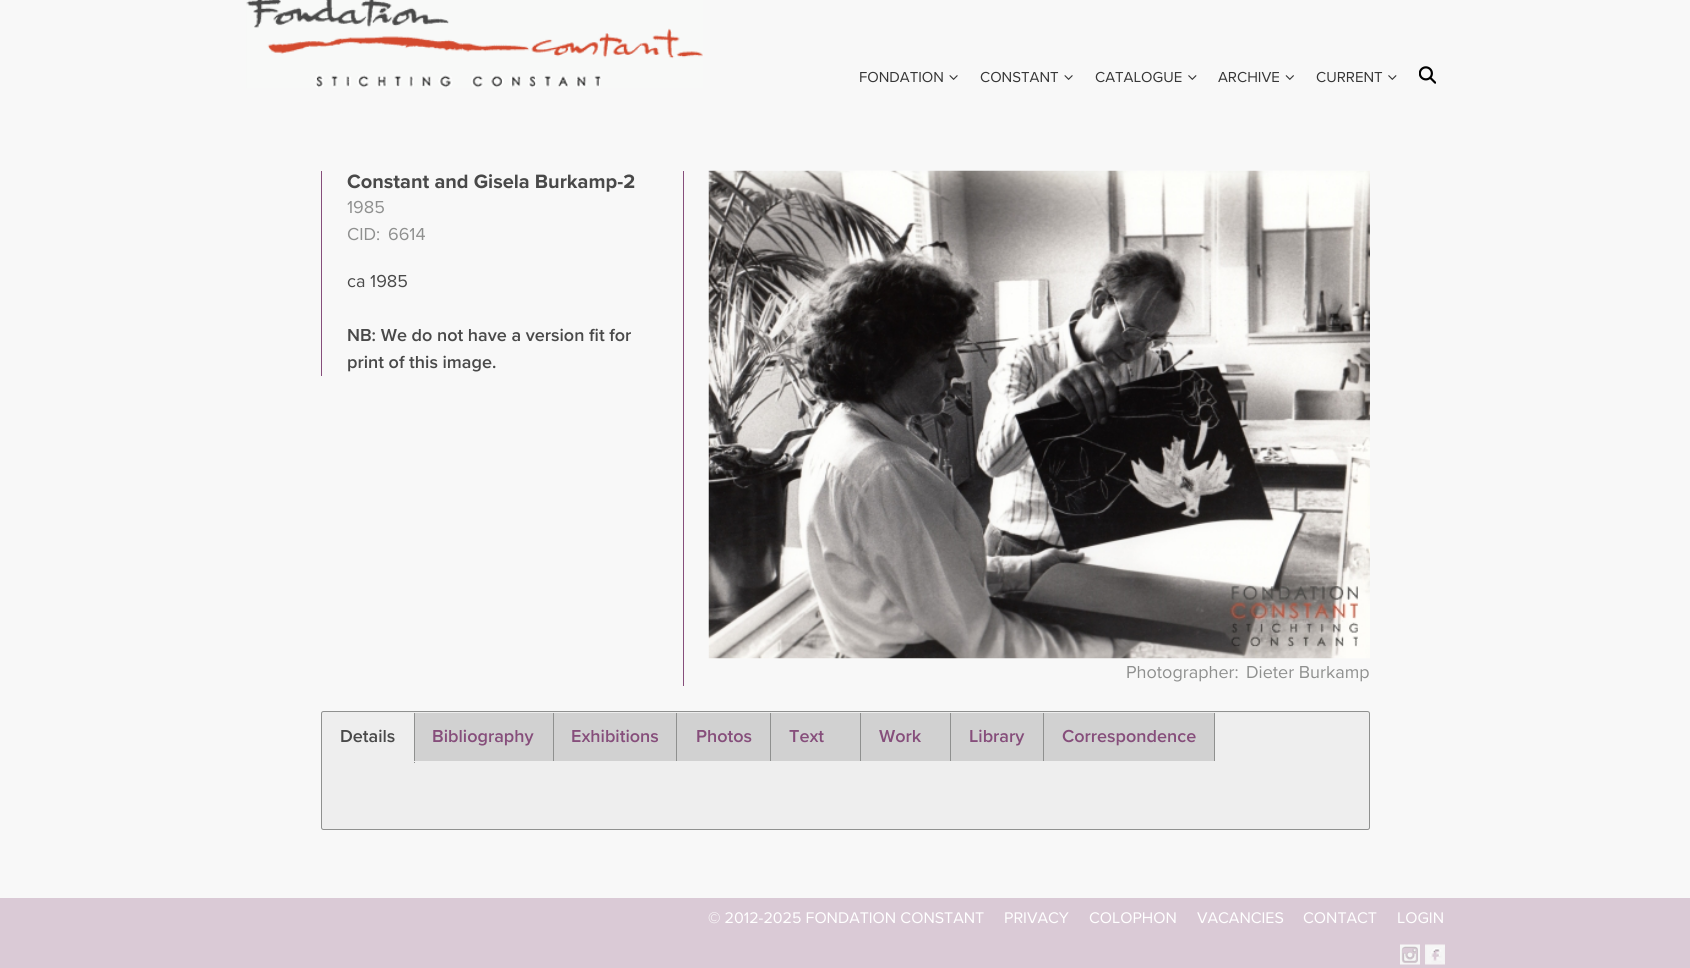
import math
import cairo


def round_path(ctx, x, y, w, h, r):
	ctx.new_sub_path()
	for i, (u, v) in enumerate([(x + w - r, y + h - r), (x + r, y + h - r), (x + r, y + r), (x + w - r, y + r)]):
		ctx.arc(u, v, r, i * math.pi / 2, (i + 1) * math.pi / 2)
	ctx.close_path()

def paste(ctx, path, x, y, w, h):
	ctx.save()
	ctx.set_source_surface(cairo.ImageSurface.create_from_png(path), x, y)
	ctx.rectangle(x, y, w, h)
	ctx.fill()
	ctx.restore()

def draw(ctx):
	ctx.set_source_rgb(0.969, 0.969, 0.969)
	ctx.paint()
	paste(ctx, 'media/1.png', 246, 0, 457, 88)
	ctx.select_font_face('Proxima Nova')
	ctx.set_font_size(15)
	ctx.set_source_rgb(0.212, 0.212, 0.212)
	ctx.move_to(859, 82)
	ctx.show_text('FONDATION')
	paste(ctx, 'media/2.png', 949, 75, 9, 5)
	ctx.move_to(980, 82)
	ctx.show_text('CONSTANT')
	paste(ctx, 'media/2.png', 1064, 75, 9, 5)
	ctx.move_to(1095, 82)
	ctx.show_text('CATALOGUE')
	paste(ctx, 'media/3.png', 1188, 75, 9, 5)
	ctx.move_to(1218, 82)
	ctx.show_text('ARCHIVE')
	paste(ctx, 'media/4.png', 1285, 75, 9, 5)
	ctx.move_to(1316, 82)
	ctx.show_text('CURRENT')
	paste(ctx, 'media/3.png', 1388, 75, 9, 5)
	paste(ctx, 'media/5.png', 1419, 66, 17, 18)
	ctx.set_source_rgb(0.525, 0.306, 0.482)
	ctx.rectangle(321, 171, 1, 205)
	ctx.fill()
	ctx.select_font_face('Proxima Nova', cairo.FONT_SLANT_NORMAL, cairo.FONT_WEIGHT_BOLD)
	ctx.set_font_size(20)
	ctx.set_source_rgb(0.286, 0.286, 0.286)
	ctx.move_to(347, 188)
	ctx.show_text('Constant and Gisela Burkamp-2')
	ctx.select_font_face('Proxima Nova')
	ctx.set_font_size(18)
	ctx.set_source_rgb(0.561, 0.565, 0.561)
	for x, y, s in [
		(347, 213, '1985'),
		(347, 240, 'CID:'),
		(388, 240, '6614'),
	]:
		ctx.move_to(x, y)
		ctx.show_text(s)
	ctx.set_source_rgb(0.286, 0.286, 0.286)
	ctx.move_to(347, 287)
	ctx.show_text('ca 1985')
	ctx.select_font_face('Proxima Nova SemiBold')
	ctx.move_to(347, 341)
	ctx.show_text('NB: We do not have a version fit for')
	ctx.move_to(347, 368)
	ctx.show_text('print of this image.')
	ctx.set_source_rgb(0.525, 0.306, 0.482)
	ctx.rectangle(683, 171, 1, 515)
	ctx.fill()
	paste(ctx, 'media/6.png', 708, 170, 662, 489)
	ctx.select_font_face('Proxima Nova')
	ctx.set_source_rgb(0.561, 0.565, 0.561)
	ctx.move_to(1126, 678)
	ctx.show_text('Photographer:')
	ctx.move_to(1246, 678)
	ctx.show_text('Dieter Burkamp')
	ctx.set_source_rgb(0.933, 0.933, 0.933)
	round_path(ctx, 321.5, 711.5, 1048, 118, 2)
	ctx.fill_preserve()
	ctx.set_source_rgb(0.561, 0.565, 0.561)
	ctx.set_line_width(1)
	ctx.stroke()
	ctx.rectangle(414, 713, 1, 50)
	ctx.fill()
	ctx.set_source_rgb(0.933, 0.933, 0.933)
	ctx.rectangle(414, 761, 1, 1)
	ctx.fill()
	ctx.select_font_face('Proxima Nova SemiBold')
	ctx.set_source_rgb(0.286, 0.286, 0.286)
	ctx.move_to(340, 742)
	ctx.show_text('Details')
	ctx.set_source_rgb(0.82, 0.82, 0.82)
	ctx.rectangle(415, 713, 138, 48)
	ctx.fill()
	ctx.set_source_rgb(0.561, 0.565, 0.561)
	ctx.rectangle(553, 713, 1, 48)
	ctx.fill()
	ctx.set_source_rgb(0.525, 0.306, 0.482)
	ctx.move_to(432, 742)
	ctx.show_text('Bibliography')
	ctx.set_source_rgb(0.82, 0.82, 0.82)
	ctx.rectangle(554, 713, 216, 48)
	ctx.fill()
	ctx.set_source_rgb(0.561, 0.565, 0.561)
	ctx.rectangle(676, 713, 1, 48)
	ctx.fill()
	ctx.set_source_rgb(0.525, 0.306, 0.482)
	ctx.move_to(571, 742)
	ctx.show_text('Exhibitions')
	ctx.set_source_rgb(0.561, 0.565, 0.561)
	ctx.rectangle(770, 713, 1, 48)
	ctx.fill()
	ctx.set_source_rgb(0.525, 0.306, 0.482)
	ctx.move_to(696, 742)
	ctx.show_text('Photos')
	ctx.set_source_rgb(0.82, 0.82, 0.82)
	ctx.rectangle(771, 713, 89, 48)
	ctx.fill()
	ctx.set_source_rgb(0.561, 0.565, 0.561)
	ctx.rectangle(860, 713, 1, 48)
	ctx.fill()
	ctx.set_source_rgb(0.525, 0.306, 0.482)
	ctx.move_to(789, 742)
	ctx.show_text('Text')
	ctx.set_source_rgb(0.82, 0.82, 0.82)
	ctx.rectangle(861, 713, 89, 48)
	ctx.fill()
	ctx.set_source_rgb(0.561, 0.565, 0.561)
	ctx.rectangle(950, 713, 1, 48)
	ctx.fill()
	ctx.set_source_rgb(0.525, 0.306, 0.482)
	ctx.move_to(879, 742)
	ctx.show_text('Work')
	ctx.set_source_rgb(0.82, 0.82, 0.82)
	ctx.rectangle(951, 713, 92, 48)
	ctx.fill()
	ctx.set_source_rgb(0.561, 0.565, 0.561)
	ctx.rectangle(1043, 713, 1, 48)
	ctx.fill()
	ctx.set_source_rgb(0.525, 0.306, 0.482)
	ctx.move_to(969, 742)
	ctx.show_text('Library')
	ctx.set_source_rgb(0.82, 0.82, 0.82)
	ctx.rectangle(1044, 713, 170, 48)
	ctx.fill()
	ctx.set_source_rgb(0.561, 0.565, 0.561)
	ctx.rectangle(1214, 713, 1, 48)
	ctx.fill()
	ctx.set_source_rgb(0.525, 0.306, 0.482)
	ctx.move_to(1062, 742)
	ctx.show_text('Correspondence')
	ctx.set_source_rgb(0.855, 0.792, 0.839)
	ctx.rectangle(0, 898, 1690, 70)
	ctx.fill()
	ctx.select_font_face('Proxima Nova')
	ctx.set_font_size(16)
	ctx.set_source_rgb(1, 1, 1)
	for x, y, s in [
		(708, 923, '© 2012-2025 FONDATION CONSTANT'),
		(1004, 923, 'PRIVACY'),
		(1089, 923, 'COLOPHON'),
		(1197, 923, 'VACANCIES'),
		(1303, 923, 'CONTACT'),
		(1397, 923, 'LOGIN'),
	]:
		ctx.move_to(x, y)
		ctx.show_text(s)
	paste(ctx, 'media/7.png', 1400, 944, 20, 21)
	paste(ctx, 'media/8.png', 1425, 944, 20, 21)


surface = cairo.ImageSurface(cairo.FORMAT_RGB24, 1690, 968)
ctx = cairo.Context(surface)
options = cairo.FontOptions()
options.set_hint_metrics(cairo.HINT_METRICS_OFF)
options.set_hint_style(cairo.HINT_STYLE_NONE)
ctx.set_font_options(options)
ctx.set_miter_limit(4)
draw(ctx)
surface.write_to_png('image.png')
